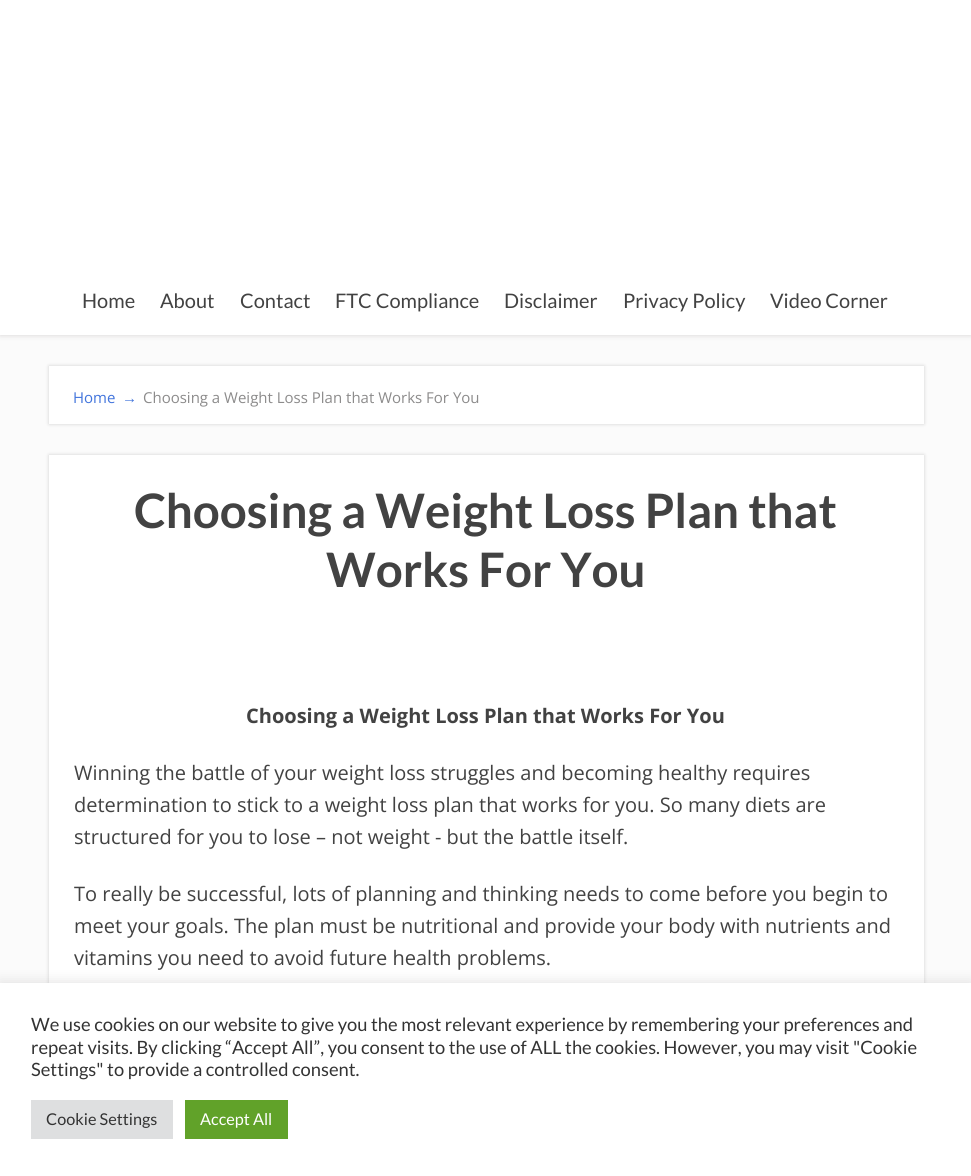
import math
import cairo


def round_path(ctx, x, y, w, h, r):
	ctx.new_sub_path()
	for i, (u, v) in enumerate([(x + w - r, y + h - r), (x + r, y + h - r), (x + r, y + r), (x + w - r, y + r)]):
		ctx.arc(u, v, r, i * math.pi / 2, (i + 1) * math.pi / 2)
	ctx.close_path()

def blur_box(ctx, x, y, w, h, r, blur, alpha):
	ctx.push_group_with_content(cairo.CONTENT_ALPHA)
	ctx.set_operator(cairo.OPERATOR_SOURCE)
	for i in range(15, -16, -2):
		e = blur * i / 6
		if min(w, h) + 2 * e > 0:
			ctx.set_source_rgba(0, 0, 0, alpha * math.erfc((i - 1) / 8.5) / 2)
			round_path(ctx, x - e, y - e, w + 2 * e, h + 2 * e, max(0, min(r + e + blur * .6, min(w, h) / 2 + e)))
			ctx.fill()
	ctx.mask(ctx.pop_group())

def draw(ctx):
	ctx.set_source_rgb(0.984, 0.984, 0.984)
	ctx.paint()
	ctx.set_source_rgb(0.875, 0.867, 0.867)
	blur_box(ctx, 0, 1, 971, 335, 0, 2.5, 1)
	ctx.set_source_rgb(1, 1, 1)
	ctx.rectangle(0, 0, 971, 335)
	ctx.fill()
	ctx.select_font_face('Lato')
	ctx.set_font_size(20)
	ctx.set_source_rgb(0.259, 0.259, 0.259)
	for x, y, s in [
		(82, 308, 'Home'),
		(160, 308, 'About'),
		(240, 308, 'Contact'),
		(335, 308, 'FTC Compliance'),
		(504, 308, 'Disclaimer'),
		(623, 308, 'Privacy Policy'),
		(770, 308, 'Video Corner'),
	]:
		ctx.move_to(x, y)
		ctx.show_text(s)
	ctx.set_source_rgb(0.004, 0.004, 0.004)
	blur_box(ctx, 49, 366, 875, 58, 0, 2, 0.16)
	ctx.set_source_rgb(1, 1, 1)
	ctx.rectangle(49, 366, 875, 58)
	ctx.fill()
	ctx.select_font_face('Open Sans')
	ctx.set_font_size(15)
	ctx.set_source_rgb(0.255, 0.455, 0.863)
	ctx.move_to(73, 403)
	ctx.show_text('Home')
	ctx.select_font_face('Liberation Sans')
	ctx.move_to(122, 403)
	ctx.show_text('→')
	ctx.select_font_face('Open Sans')
	ctx.set_source_rgb(0.549, 0.545, 0.545)
	ctx.move_to(143, 403)
	ctx.show_text('Choosing a Weight Loss Plan that Works For You')
	ctx.set_source_rgb(0.004, 0.004, 0.004)
	blur_box(ctx, 49, 455, 875, 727, 0, 2, 0.16)
	ctx.set_source_rgb(1, 1, 1)
	ctx.rectangle(49, 455, 875, 528)
	ctx.fill()
	ctx.select_font_face('Lato', cairo.FONT_SLANT_NORMAL, cairo.FONT_WEIGHT_BOLD)
	ctx.set_font_size(47.5)
	ctx.set_source_rgb(0.259, 0.259, 0.259)
	ctx.move_to(134, 528)
	ctx.show_text('Choosing a Weight Loss Plan that')
	ctx.move_to(326, 587)
	ctx.show_text('Works For You')
	ctx.select_font_face('Open Sans', cairo.FONT_SLANT_NORMAL, cairo.FONT_WEIGHT_BOLD)
	ctx.set_font_size(20)
	ctx.move_to(246, 723)
	ctx.show_text('Choosing a Weight Loss Plan that Works For You')
	ctx.select_font_face('Open Sans')
	for x, y, s in [
		(74, 780, 'Winning the battle of your weight loss struggles and becoming healthy requires'),
		(74, 812, 'determination to stick to a weight loss plan that works for you. So many diets are'),
		(74, 844, 'structured for you to lose – not weight - but the battle itself.'),
		(74, 901, 'To really be successful, lots of planning and thinking needs to come before you begin to'),
		(74, 933, 'meet your goals. The plan must be nutritional and provide your body with nutrients and'),
		(74, 965, 'vitamins you need to avoid future health problems.'),
	]:
		ctx.move_to(x, y)
		ctx.show_text(s)
	ctx.set_source_rgb(0.675, 0.671, 0.671)
	blur_box(ctx, 0, 981, 971, 194, 0, 6, 0.3)
	ctx.set_source_rgb(1, 1, 1)
	ctx.rectangle(0, 983, 971, 193)
	ctx.fill()
	ctx.select_font_face('Lato')
	ctx.set_font_size(18.35)
	ctx.set_source_rgb(0.2, 0.2, 0.2)
	for x, y, s in [
		(31, 1031, 'We use cookies on our website to give you the most relevant experience by remembering your preferences and'),
		(31, 1054, 'repeat visits. By clicking “Accept All”, you consent to the use of ALL the cookies. However, you may visit "Cookie'),
		(31, 1076, 'Settings" to provide a controlled consent.'),
	]:
		ctx.move_to(x, y)
		ctx.show_text(s)
	ctx.set_source_rgb(0.871, 0.875, 0.878)
	ctx.rectangle(31, 1100, 142, 39)
	ctx.fill()
	ctx.set_font_size(16.25)
	ctx.set_source_rgb(0.2, 0.2, 0.2)
	ctx.move_to(46, 1125)
	ctx.show_text('Cookie Settings')
	ctx.set_source_rgb(0.38, 0.635, 0.161)
	ctx.rectangle(185, 1100, 103, 39)
	ctx.fill()
	ctx.set_source_rgb(1, 1, 1)
	ctx.move_to(200, 1125)
	ctx.show_text('Accept All')


surface = cairo.ImageSurface(cairo.FORMAT_RGB24, 971, 1176)
ctx = cairo.Context(surface)
options = cairo.FontOptions()
options.set_hint_metrics(cairo.HINT_METRICS_OFF)
options.set_hint_style(cairo.HINT_STYLE_NONE)
ctx.set_font_options(options)
ctx.set_miter_limit(4)
draw(ctx)
surface.write_to_png('image.png')
